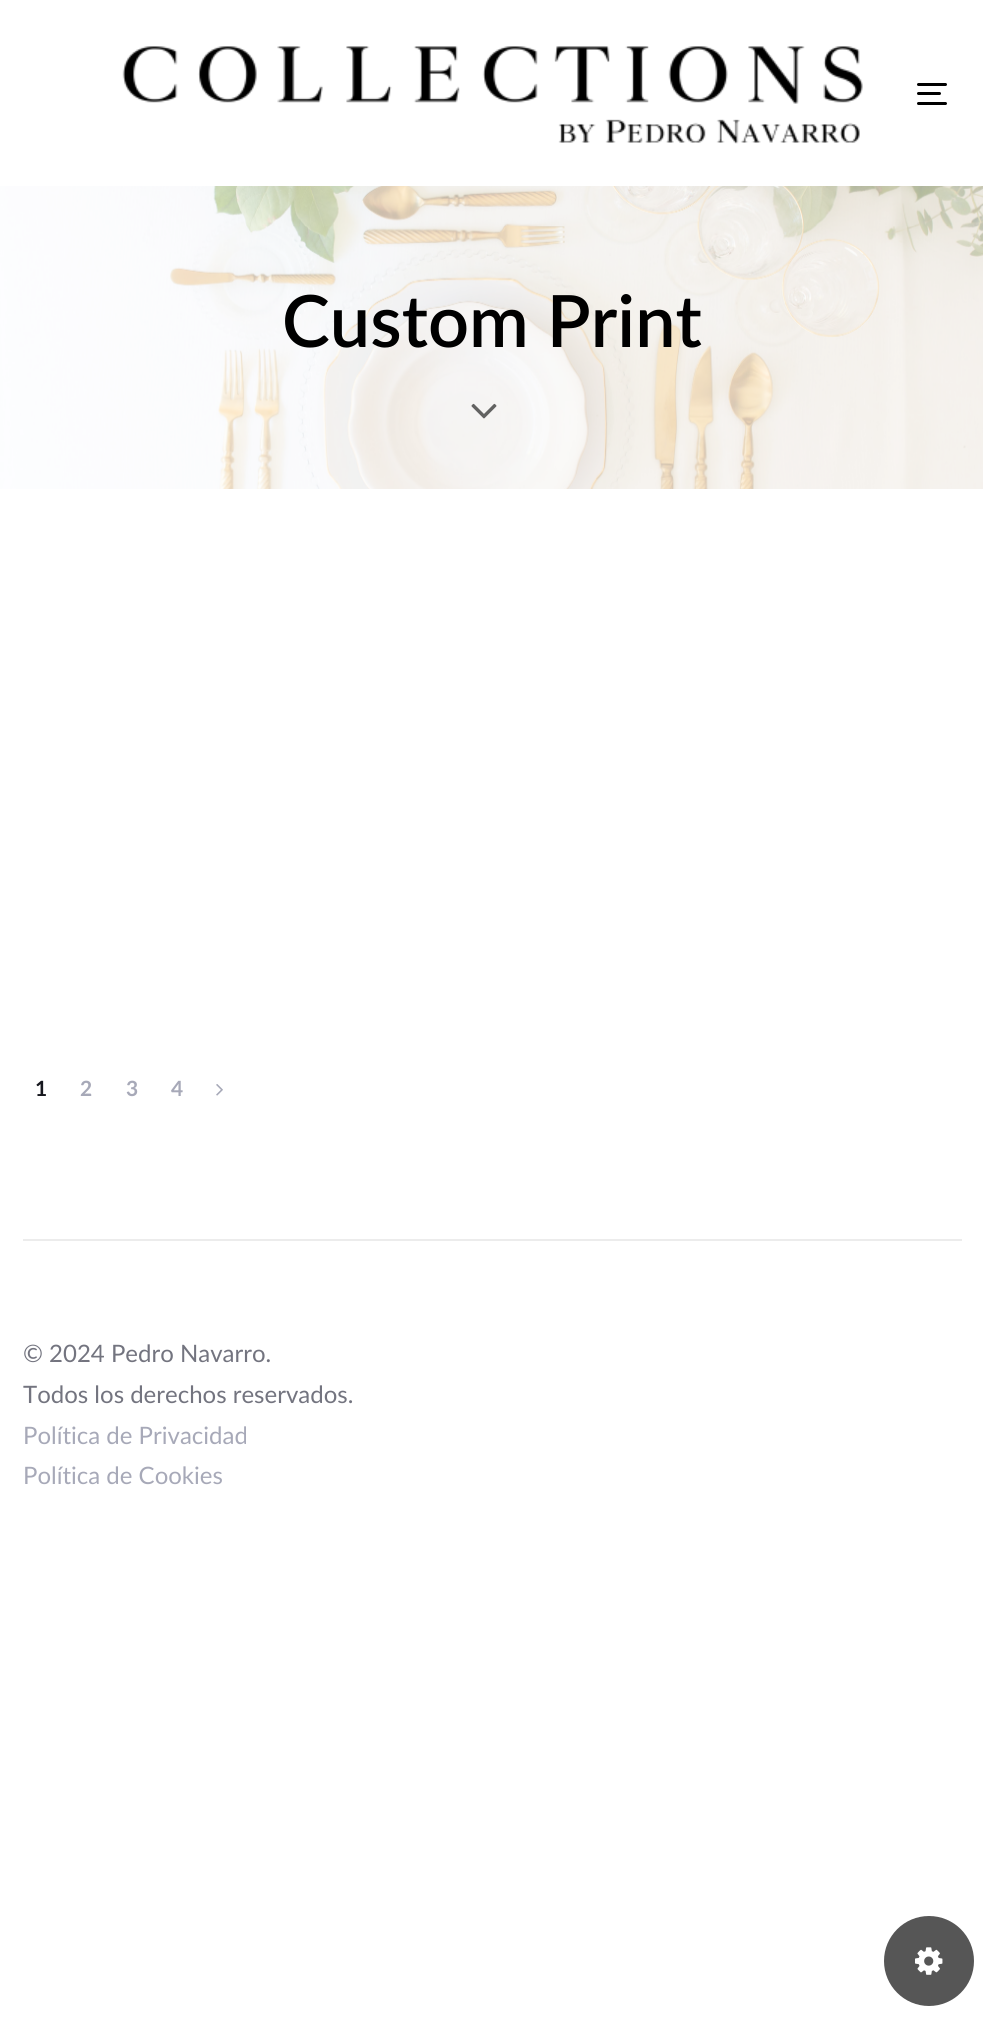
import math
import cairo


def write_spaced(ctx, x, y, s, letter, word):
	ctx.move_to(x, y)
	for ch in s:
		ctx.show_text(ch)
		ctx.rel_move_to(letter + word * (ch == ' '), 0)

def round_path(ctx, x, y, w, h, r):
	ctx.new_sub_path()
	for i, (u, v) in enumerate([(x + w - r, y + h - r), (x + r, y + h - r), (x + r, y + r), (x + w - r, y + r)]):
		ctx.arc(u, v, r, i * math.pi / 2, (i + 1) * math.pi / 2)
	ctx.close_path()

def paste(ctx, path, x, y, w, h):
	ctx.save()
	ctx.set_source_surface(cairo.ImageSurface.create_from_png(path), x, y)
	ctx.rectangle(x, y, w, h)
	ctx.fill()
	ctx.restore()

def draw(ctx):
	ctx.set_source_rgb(1, 1, 1)
	ctx.paint()
	paste(ctx, 'media/1.png', 122, 46, 741, 98)
	ctx.set_source_rgb(0, 0, 0)
	round_path(ctx, 917, 83, 30, 3, 1.5)
	ctx.fill()
	round_path(ctx, 917, 92, 24, 3, 1.5)
	ctx.fill()
	round_path(ctx, 917, 102, 30, 3, 1.5)
	ctx.fill()
	paste(ctx, 'media/2.png', 0, 186, 983, 303)
	ctx.select_font_face('Lato SemiBold')
	ctx.set_font_size(72)
	ctx.move_to(282, 347)
	ctx.show_text('Custom Print')
	paste(ctx, 'media/3.png', 471, 403, 26, 16)
	ctx.select_font_face('Lato', cairo.FONT_SLANT_NORMAL, cairo.FONT_WEIGHT_BOLD)
	ctx.set_font_size(21)
	ctx.set_source_rgb(0.086, 0.09, 0.118)
	write_spaced(ctx, 35, 1096, '1', 2, 0)
	ctx.set_source_rgb(0.655, 0.663, 0.722)
	for x, y, s in [
		(80, 1096, '2'),
		(126, 1096, '3'),
		(171, 1096, '4'),
	]:
		write_spaced(ctx, x, y, s, 2, 0)
	paste(ctx, 'media/4.png', 216, 1084, 7, 12)
	ctx.set_source_rgb(0.922, 0.922, 0.922)
	ctx.rectangle(23, 1239, 939, 2)
	ctx.fill()
	ctx.select_font_face('Lato')
	ctx.set_font_size(24)
	ctx.set_source_rgb(0.451, 0.455, 0.498)
	ctx.move_to(23, 1362)
	ctx.show_text('© 2024 Pedro Navarro.')
	ctx.move_to(23, 1403)
	ctx.show_text('Todos los derechos reservados.')
	ctx.set_source_rgb(0.655, 0.663, 0.722)
	ctx.move_to(23, 1444)
	ctx.show_text('Política de Privacidad')
	ctx.move_to(23, 1484)
	ctx.show_text('Política de Cookies')
	ctx.set_source_rgb(0.337, 0.337, 0.337)
	ctx.new_path()
	ctx.arc(929, 1961, 45, 0, 2 * math.pi)
	ctx.fill()
	paste(ctx, 'media/5.png', 915, 1947, 28, 28)


surface = cairo.ImageSurface(cairo.FORMAT_RGB24, 983, 2024)
ctx = cairo.Context(surface)
options = cairo.FontOptions()
options.set_hint_metrics(cairo.HINT_METRICS_OFF)
options.set_hint_style(cairo.HINT_STYLE_NONE)
ctx.set_font_options(options)
ctx.set_miter_limit(4)
draw(ctx)
surface.write_to_png('image.png')
